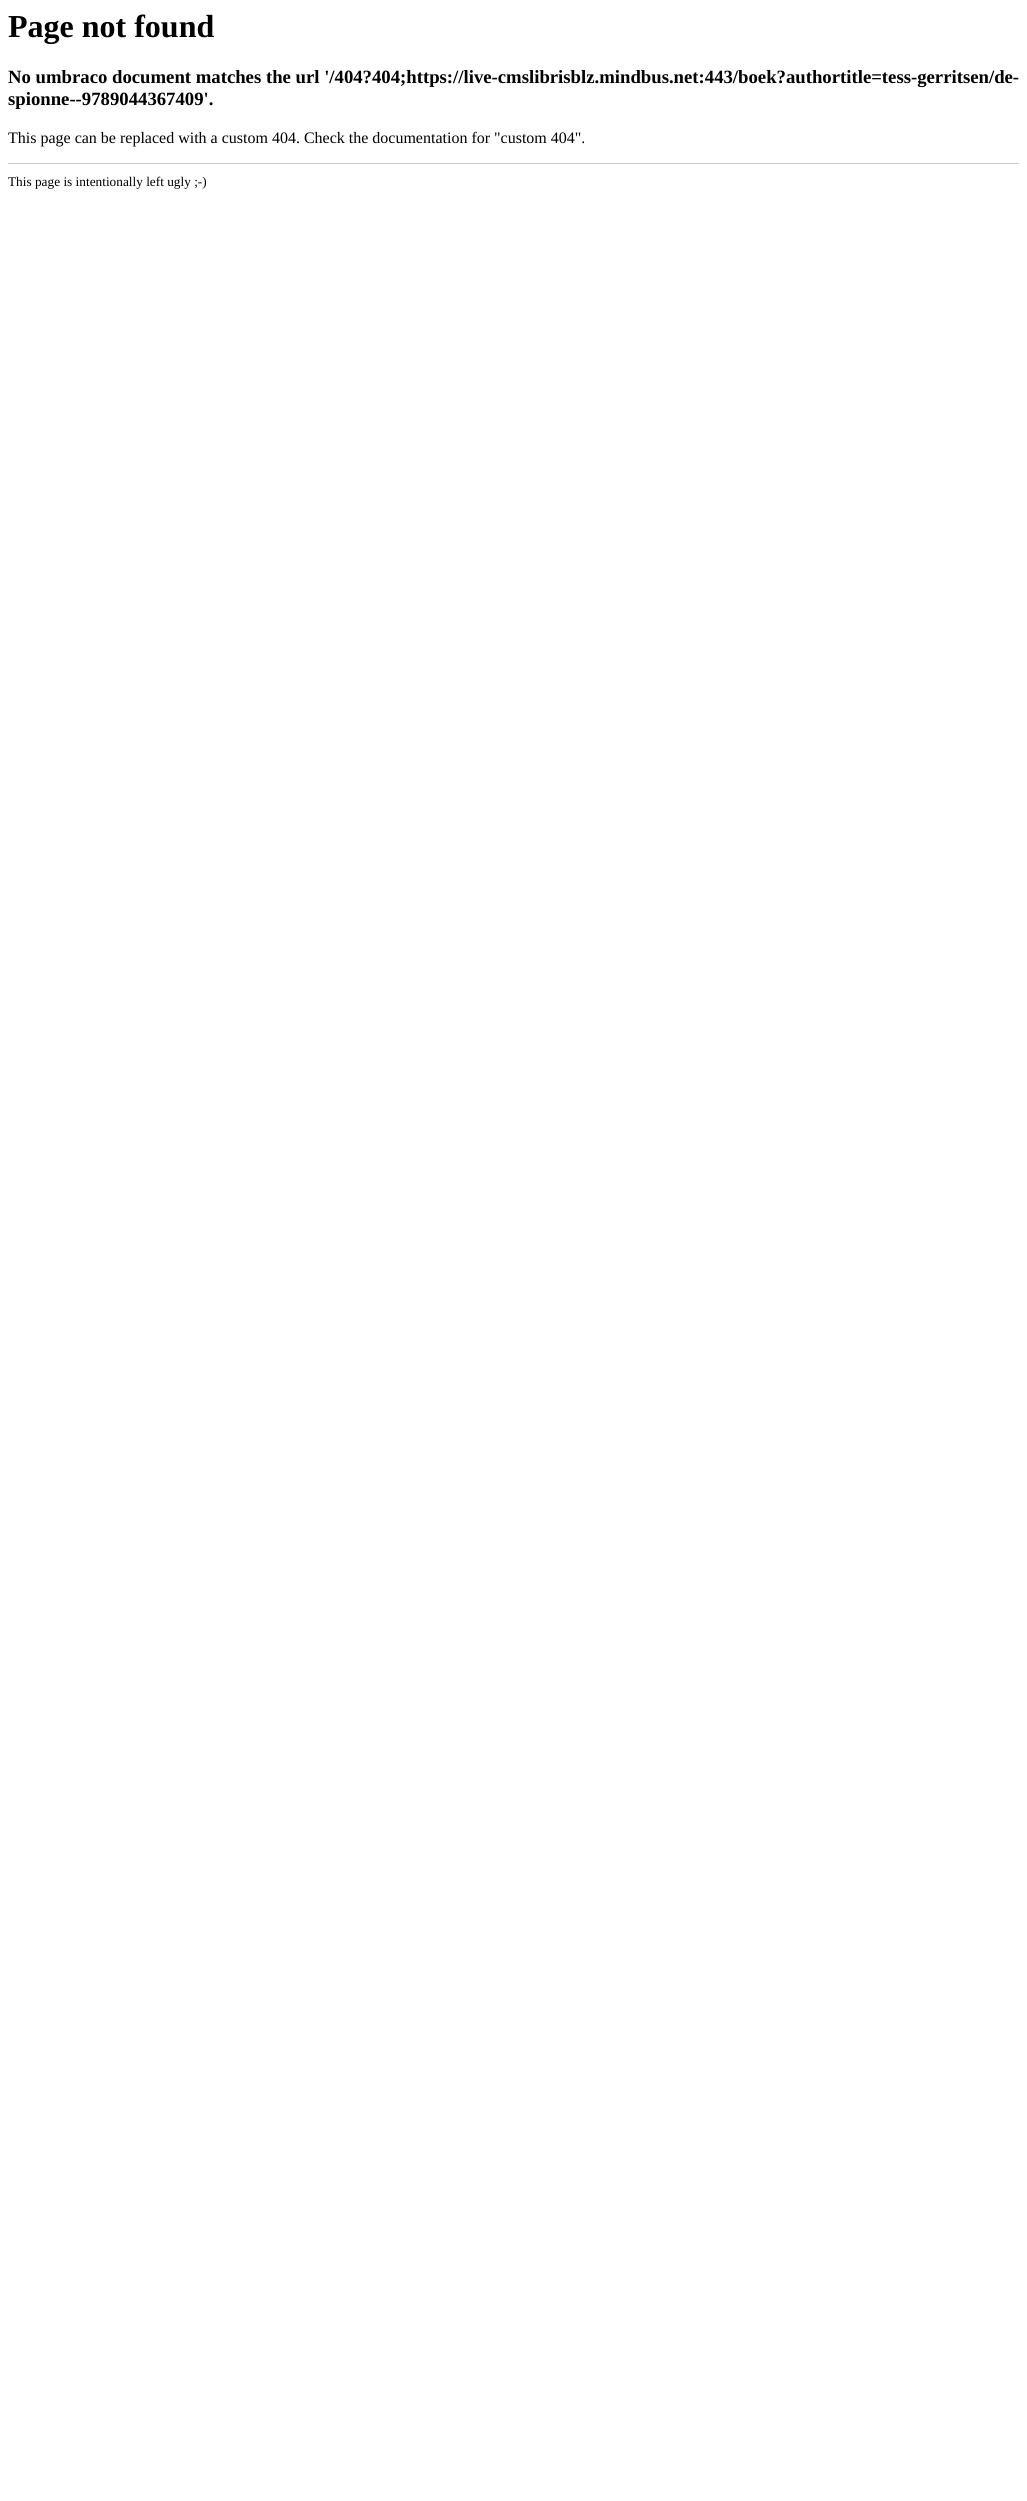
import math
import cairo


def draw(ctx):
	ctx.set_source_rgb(1, 1, 1)
	ctx.paint()
	ctx.select_font_face('Liberation Serif', cairo.FONT_SLANT_NORMAL, cairo.FONT_WEIGHT_BOLD)
	ctx.set_font_size(32)
	ctx.set_source_rgb(0, 0, 0)
	ctx.move_to(8, 37)
	ctx.show_text('Page not found')
	ctx.set_font_size(18.72)
	ctx.move_to(8, 83)
	ctx.show_text('No umbraco document matches the url \'/404?404;https://live-cmslibrisblz.mindbus.net:443/boek?authortitle=tess-gerritsen/de-')
	ctx.move_to(8, 105)
	ctx.show_text('spionne--9789044367409\'.')
	ctx.select_font_face('Liberation Serif')
	ctx.set_font_size(16)
	ctx.move_to(8, 143)
	ctx.show_text('This page can be replaced with a custom 404. Check the documentation for "custom 404".')
	ctx.set_source_rgb(0.8, 0.8, 0.8)
	ctx.rectangle(8, 163, 1011, 1)
	ctx.fill()
	ctx.set_font_size(13.3)
	ctx.set_source_rgb(0, 0, 0)
	ctx.move_to(8, 186)
	ctx.show_text('This page is intentionally left ugly ;-)')


surface = cairo.ImageSurface(cairo.FORMAT_RGB24, 1027, 2501)
ctx = cairo.Context(surface)
options = cairo.FontOptions()
options.set_hint_metrics(cairo.HINT_METRICS_OFF)
options.set_hint_style(cairo.HINT_STYLE_NONE)
ctx.set_font_options(options)
ctx.set_miter_limit(4)
draw(ctx)
surface.write_to_png('image.png')
